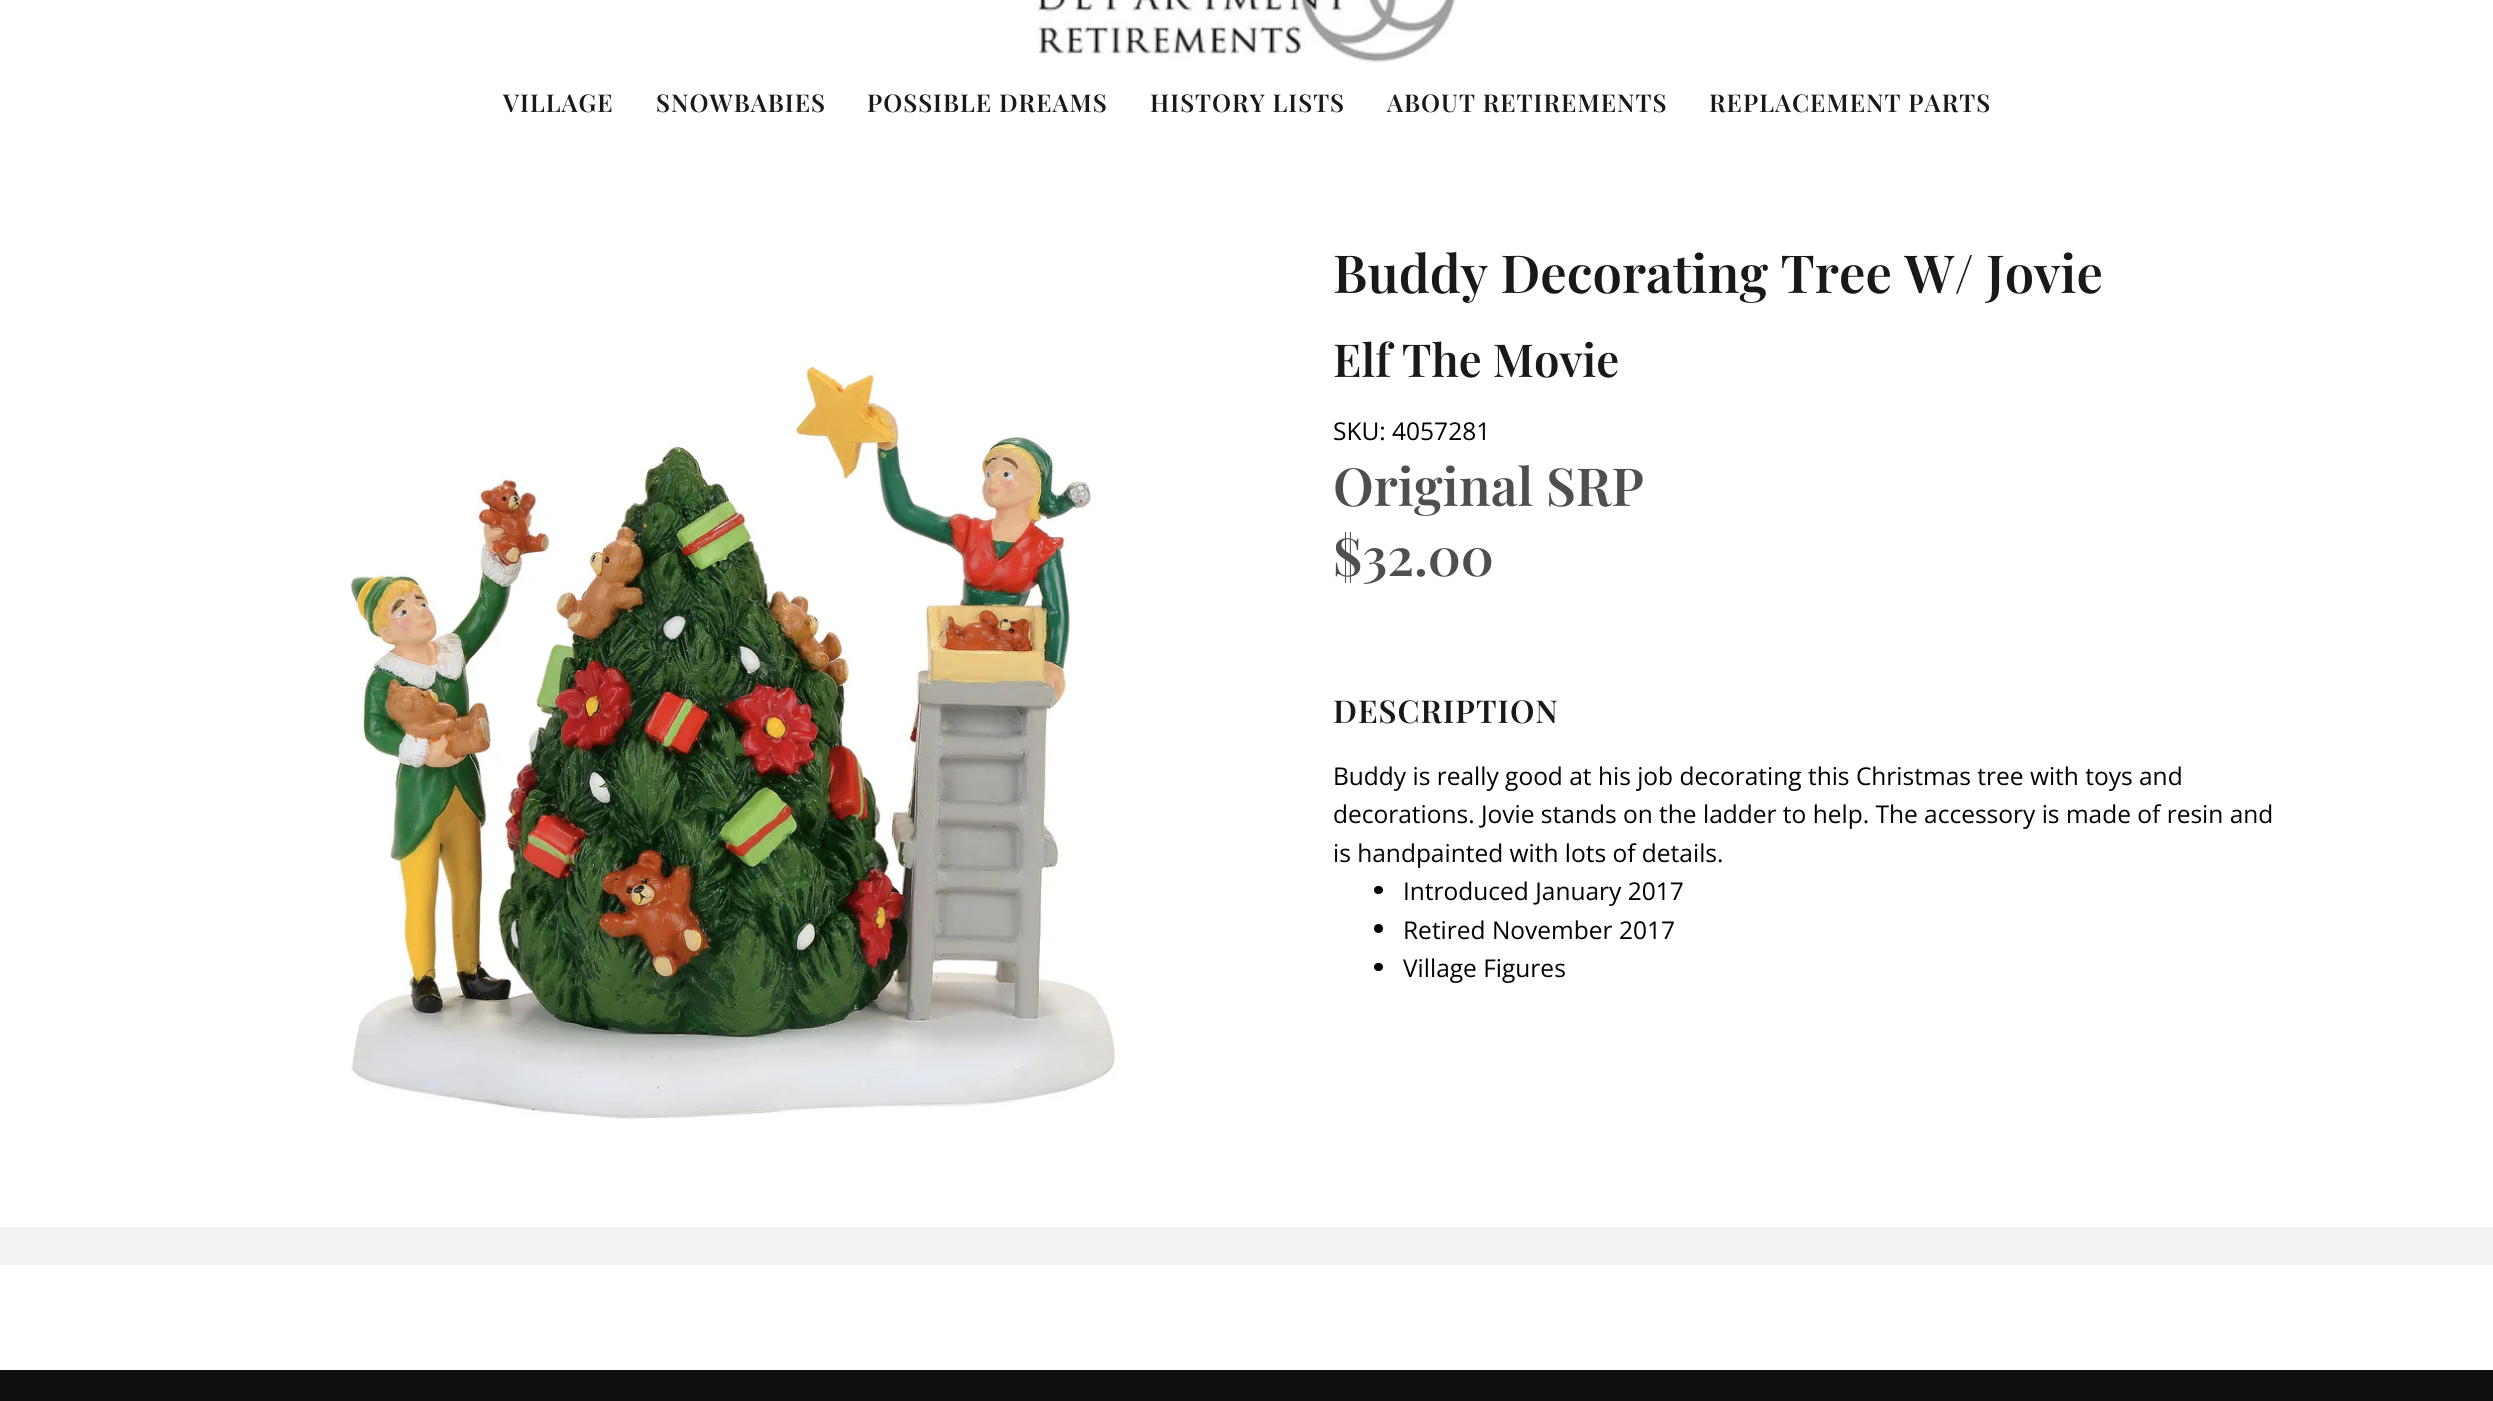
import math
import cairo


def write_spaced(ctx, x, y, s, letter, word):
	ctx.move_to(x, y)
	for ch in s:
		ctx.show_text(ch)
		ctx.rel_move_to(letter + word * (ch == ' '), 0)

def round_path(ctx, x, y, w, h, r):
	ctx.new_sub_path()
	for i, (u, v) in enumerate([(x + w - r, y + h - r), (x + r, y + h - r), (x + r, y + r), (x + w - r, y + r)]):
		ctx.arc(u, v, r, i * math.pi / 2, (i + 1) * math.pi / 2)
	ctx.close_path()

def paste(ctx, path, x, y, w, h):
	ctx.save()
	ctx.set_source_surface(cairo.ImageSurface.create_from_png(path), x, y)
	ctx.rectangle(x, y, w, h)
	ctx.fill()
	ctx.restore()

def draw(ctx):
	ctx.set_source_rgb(1, 1, 1)
	ctx.paint()
	paste(ctx, 'media/1.png', 1036, 0, 419, 62)
	ctx.select_font_face('Playfair Display SemiBold')
	ctx.set_font_size(24.5)
	ctx.set_source_rgb(0.098, 0.098, 0.098)
	for x, y, s in [
		(503, 112, 'VILLAGE'),
		(656, 112, 'SNOWBABIES'),
		(867, 112, 'POSSIBLE DREAMS'),
		(1150, 112, 'HISTORY LISTS'),
		(1387, 112, 'ABOUT RETIREMENTS'),
		(1709, 112, 'REPLACEMENT PARTS'),
	]:
		write_spaced(ctx, x, y, s, 1, 0)
	paste(ctx, 'media/2.png', 350, 365, 767, 755)
	ctx.set_font_size(52.5)
	ctx.move_to(1333, 293)
	ctx.show_text('Buddy Decorating Tree W/ Jovie')
	ctx.set_font_size(45.5)
	ctx.move_to(1333, 377)
	ctx.show_text('Elf The Movie')
	ctx.select_font_face('Open Sans')
	ctx.set_font_size(24.5)
	ctx.set_source_rgb(0, 0, 0)
	ctx.move_to(1333, 440)
	ctx.show_text('SKU: 4057281')
	ctx.select_font_face('Playfair Display SemiBold')
	ctx.set_font_size(52.5)
	ctx.set_source_rgb(0.31, 0.31, 0.31)
	ctx.move_to(1333, 506)
	ctx.show_text('Original SRP')
	ctx.move_to(1333, 576)
	ctx.show_text('$32.00')
	ctx.set_font_size(31.5)
	ctx.set_source_rgb(0.098, 0.098, 0.098)
	write_spaced(ctx, 1333, 723, 'DESCRIPTION', 1, 0)
	ctx.select_font_face('Open Sans')
	ctx.set_font_size(24.5)
	ctx.set_source_rgb(0, 0, 0)
	for x, y, s in [
		(1333, 785, 'Buddy is really good at his job decorating this Christmas tree with toys and'),
		(1333, 823, 'decorations. Jovie stands on the ladder to help. The accessory is made of resin and'),
		(1333, 862, 'is handpainted with lots of details.'),
	]:
		ctx.move_to(x, y)
		ctx.show_text(s)
	round_path(ctx, 1374, 886, 9, 8, 4)
	ctx.fill()
	ctx.move_to(1403, 900)
	ctx.show_text('Introduced January 2017')
	ctx.new_path()
	ctx.arc(1378.5, 928.5, 4.5, 0, 2 * math.pi)
	ctx.fill()
	ctx.move_to(1403, 939)
	ctx.show_text('Retired November 2017')
	round_path(ctx, 1374, 963, 9, 8, 4)
	ctx.fill()
	ctx.move_to(1403, 977)
	ctx.show_text('Village Figures')
	ctx.set_source_rgb(0.949, 0.949, 0.949)
	ctx.rectangle(0, 1227, 2493, 38)
	ctx.fill()
	ctx.set_source_rgb(0.059, 0.059, 0.059)
	ctx.rectangle(0, 1370, 2493, 31)
	ctx.fill()


surface = cairo.ImageSurface(cairo.FORMAT_RGB24, 2493, 1401)
ctx = cairo.Context(surface)
options = cairo.FontOptions()
options.set_hint_metrics(cairo.HINT_METRICS_OFF)
options.set_hint_style(cairo.HINT_STYLE_NONE)
ctx.set_font_options(options)
ctx.set_miter_limit(4)
draw(ctx)
surface.write_to_png('image.png')
